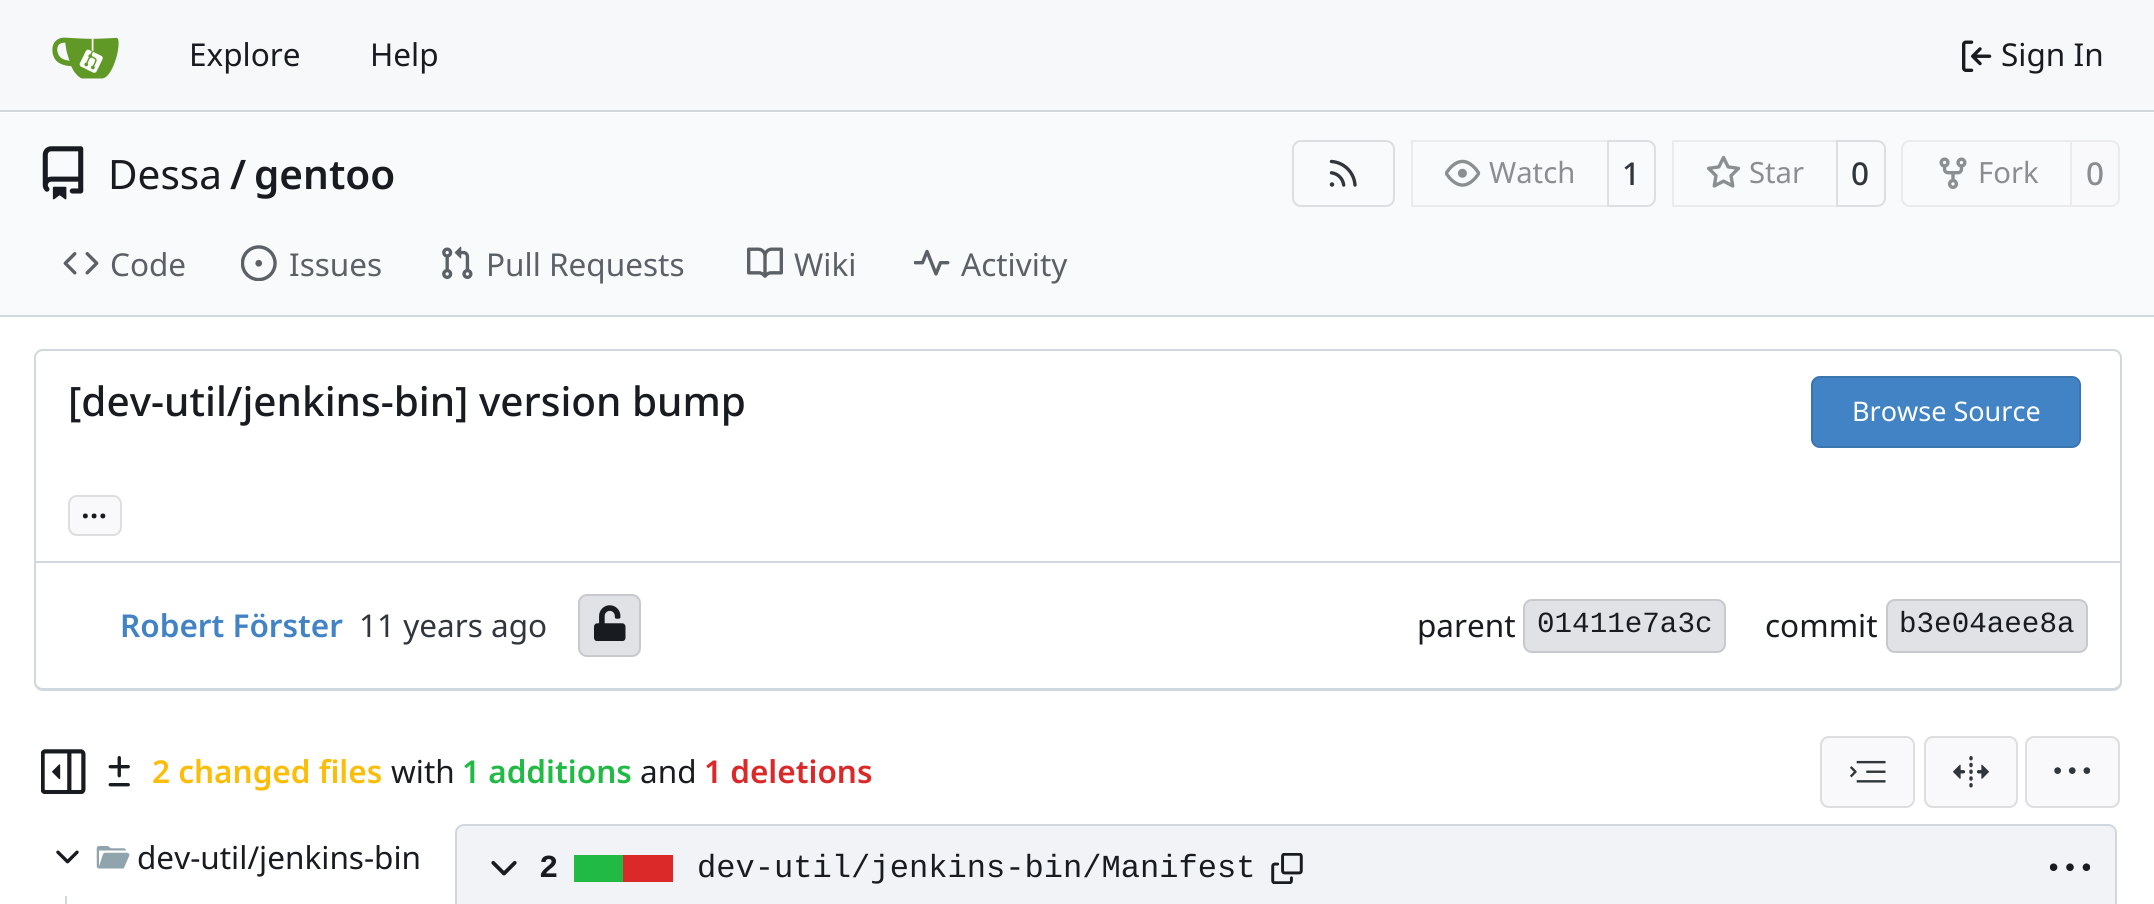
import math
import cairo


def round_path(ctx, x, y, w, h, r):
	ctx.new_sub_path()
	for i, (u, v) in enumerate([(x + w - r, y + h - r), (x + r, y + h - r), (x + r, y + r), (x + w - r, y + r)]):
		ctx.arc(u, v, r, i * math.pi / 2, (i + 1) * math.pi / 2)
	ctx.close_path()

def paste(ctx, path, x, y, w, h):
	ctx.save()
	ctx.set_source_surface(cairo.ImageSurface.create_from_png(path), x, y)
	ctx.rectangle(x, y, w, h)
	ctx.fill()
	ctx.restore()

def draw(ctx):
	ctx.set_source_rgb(1, 1, 1)
	ctx.paint()
	ctx.set_source_rgb(0.965, 0.969, 0.98)
	ctx.rectangle(0, 0, 2154, 110)
	ctx.fill()
	ctx.set_source_rgb(0.816, 0.843, 0.871)
	ctx.rectangle(0, 110, 2154, 2)
	ctx.fill()
	paste(ctx, 'media/1.png', 52, 37, 67, 42)
	ctx.select_font_face('Noto Sans')
	ctx.set_font_size(31.5)
	ctx.set_source_rgb(0.094, 0.11, 0.129)
	ctx.move_to(189, 66)
	ctx.show_text('Explore')
	ctx.move_to(370, 66)
	ctx.show_text('Help')
	paste(ctx, 'media/2.png', 1962, 40, 30, 32)
	ctx.move_to(2001, 66)
	ctx.show_text('Sign In')
	ctx.set_source_rgb(0.976, 0.98, 0.984)
	ctx.rectangle(0, 113, 2154, 202)
	ctx.fill()
	paste(ctx, 'media/3.png', 42, 146, 42, 54)
	ctx.set_font_size(40.5)
	ctx.set_source_rgb(0.094, 0.11, 0.129)
	ctx.move_to(108, 189)
	ctx.show_text('Dessa')
	ctx.select_font_face('Noto Sans SemiBold')
	ctx.move_to(230, 189)
	ctx.show_text('/')
	ctx.move_to(254, 189)
	ctx.show_text('gentoo')
	round_path(ctx, 1293, 141, 101, 65, 8)
	ctx.set_source_rgb(0.867, 0.871, 0.882)
	ctx.stroke()
	paste(ctx, 'media/4.png', 1329, 159, 28, 28)
	ctx.new_path()
	ctx.move_to(1608, 141)
	ctx.line_to(1647, 141)
	ctx.curve_to(1651.5, 141, 1655, 144.5, 1655, 149)
	ctx.line_to(1655, 198)
	ctx.curve_to(1655, 202.5, 1651.5, 206, 1647, 206)
	ctx.line_to(1608, 206)
	ctx.close_path()
	ctx.stroke()
	ctx.set_source_rgba(0.973, 0.976, 0.984, 0.55)
	ctx.new_path()
	ctx.move_to(1420, 140)
	ctx.line_to(1609, 140)
	ctx.line_to(1609, 207)
	ctx.line_to(1420, 207)
	ctx.curve_to(1415, 207, 1411, 203, 1411, 198)
	ctx.line_to(1411, 149)
	ctx.curve_to(1411, 144, 1415, 140, 1420, 140)
	ctx.close_path()
	ctx.fill()
	ctx.rectangle(1412, 141, 196, 65)
	ctx.set_source_rgba(0, 0, 0.09, 0.06)
	ctx.stroke()
	paste(ctx, 'media/5.png', 1445, 159, 36, 28)
	ctx.select_font_face('Noto Sans')
	ctx.set_font_size(29.25)
	ctx.set_source_rgb(0.541, 0.557, 0.569)
	ctx.move_to(1489, 183)
	ctx.show_text('Watch')
	ctx.select_font_face('Noto Sans Medium')
	ctx.set_font_size(31.5)
	ctx.set_source_rgb(0.188, 0.212, 0.231)
	ctx.move_to(1622, 185)
	ctx.show_text('1')
	ctx.new_path()
	ctx.move_to(1837, 141)
	ctx.line_to(1877, 141)
	ctx.curve_to(1881.5, 141, 1885, 144.5, 1885, 149)
	ctx.line_to(1885, 198)
	ctx.curve_to(1885, 202.5, 1881.5, 206, 1877, 206)
	ctx.line_to(1837, 206)
	ctx.close_path()
	ctx.set_source_rgb(0.867, 0.871, 0.882)
	ctx.stroke()
	ctx.set_source_rgba(0.973, 0.976, 0.984, 0.55)
	ctx.new_path()
	ctx.move_to(1681, 140)
	ctx.line_to(1838, 140)
	ctx.line_to(1838, 207)
	ctx.line_to(1681, 207)
	ctx.curve_to(1676, 207, 1672, 203, 1672, 198)
	ctx.line_to(1672, 149)
	ctx.curve_to(1672, 144, 1676, 140, 1681, 140)
	ctx.close_path()
	ctx.fill()
	ctx.rectangle(1673, 141, 164, 65)
	ctx.set_source_rgba(0, 0, 0.09, 0.06)
	ctx.stroke()
	paste(ctx, 'media/6.png', 1706, 155, 35, 33)
	ctx.select_font_face('Noto Sans')
	ctx.set_font_size(29.25)
	ctx.set_source_rgb(0.541, 0.557, 0.569)
	ctx.move_to(1749, 183)
	ctx.show_text('Star')
	ctx.select_font_face('Noto Sans Medium')
	ctx.set_font_size(31.5)
	ctx.set_source_rgb(0.188, 0.212, 0.231)
	ctx.move_to(1851, 185)
	ctx.show_text('0')
	ctx.new_path()
	ctx.move_to(1910, 141)
	ctx.line_to(2071, 141)
	ctx.line_to(2071, 206)
	ctx.line_to(1910, 206)
	ctx.curve_to(1905.5, 206, 1902, 202.5, 1902, 198)
	ctx.line_to(1902, 149)
	ctx.curve_to(1902, 144.5, 1905.5, 141, 1910, 141)
	ctx.close_path()
	ctx.set_source_rgb(0.914, 0.918, 0.929)
	ctx.stroke()
	paste(ctx, 'media/7.png', 1939, 157, 28, 32)
	ctx.select_font_face('Noto Sans')
	ctx.set_font_size(29.25)
	ctx.set_source_rgb(0.541, 0.557, 0.569)
	ctx.move_to(1978, 183)
	ctx.show_text('Fork')
	ctx.set_source_rgb(0.973, 0.976, 0.984)
	ctx.new_path()
	ctx.move_to(2071, 141)
	ctx.line_to(2111, 141)
	ctx.curve_to(2115.5, 141, 2119, 144.5, 2119, 149)
	ctx.line_to(2119, 198)
	ctx.curve_to(2119, 202.5, 2115.5, 206, 2111, 206)
	ctx.line_to(2071, 206)
	ctx.close_path()
	ctx.fill_preserve()
	ctx.set_source_rgb(0.914, 0.918, 0.929)
	ctx.stroke()
	ctx.select_font_face('Noto Sans Medium')
	ctx.set_font_size(31.5)
	ctx.set_source_rgb(0.541, 0.557, 0.569)
	ctx.move_to(2086, 185)
	ctx.show_text('0')
	paste(ctx, 'media/8.png', 63, 252, 36, 23)
	ctx.select_font_face('Noto Sans')
	ctx.set_source_rgb(0.357, 0.38, 0.404)
	ctx.move_to(110, 276)
	ctx.show_text('Code')
	paste(ctx, 'media/9.png', 241, 245, 36, 36)
	ctx.move_to(289, 276)
	ctx.show_text('Issues')
	paste(ctx, 'media/10.png', 442, 246, 31, 33)
	ctx.move_to(486, 276)
	ctx.show_text('Pull Requests')
	paste(ctx, 'media/11.png', 747, 247, 36, 31)
	ctx.move_to(794, 276)
	ctx.show_text('Wiki')
	paste(ctx, 'media/12.png', 914, 249, 36, 27)
	ctx.move_to(961, 276)
	ctx.show_text('Activity')
	ctx.set_source_rgb(0.816, 0.843, 0.871)
	ctx.rectangle(0, 315, 2154, 2)
	ctx.fill()
	ctx.new_path()
	ctx.move_to(43, 350)
	ctx.line_to(2113, 350)
	ctx.curve_to(2117.5, 350, 2121, 353.5, 2121, 358)
	ctx.line_to(2121, 562)
	ctx.line_to(35, 562)
	ctx.line_to(35, 358)
	ctx.curve_to(35, 353.5, 38.5, 350, 43, 350)
	ctx.close_path()
	ctx.stroke()
	ctx.select_font_face('Noto Sans Medium')
	ctx.set_font_size(40.5)
	ctx.set_source_rgb(0.094, 0.11, 0.129)
	ctx.move_to(68, 416)
	ctx.show_text('[dev-util/jenkins-bin] version bump')
	ctx.set_source_rgb(0.255, 0.514, 0.769)
	round_path(ctx, 1811, 376, 270, 72, 9)
	ctx.fill()
	round_path(ctx, 1812, 377, 268, 70, 8)
	ctx.set_source_rgba(0, 0, 0.09, 0.11)
	ctx.stroke()
	ctx.select_font_face('Noto Sans')
	ctx.set_font_size(27)
	ctx.set_source_rgb(1, 1, 1)
	ctx.move_to(1852, 421)
	ctx.show_text('Browse Source')
	ctx.set_source_rgb(0.973, 0.976, 0.984)
	round_path(ctx, 68, 495, 54, 41, 9)
	ctx.fill()
	round_path(ctx, 69, 496, 52, 39, 8)
	ctx.set_source_rgba(0, 0, 0.09, 0.11)
	ctx.stroke()
	ctx.select_font_face('Noto Sans SemiBold')
	ctx.set_font_size(31.5)
	ctx.set_source_rgb(0.094, 0.11, 0.129)
	ctx.move_to(81, 518)
	ctx.show_text('...')
	ctx.set_source_rgb(0.816, 0.843, 0.871)
	ctx.set_fill_rule(cairo.FILL_RULE_EVEN_ODD)
	ctx.new_path()
	ctx.move_to(34, 562)
	ctx.line_to(2122, 562)
	ctx.line_to(2122, 682)
	ctx.curve_to(2122, 687, 2118, 691, 2113, 691)
	ctx.line_to(43, 691)
	ctx.curve_to(38, 691, 34, 687, 34, 682)
	ctx.close_path()
	ctx.move_to(36, 562)
	ctx.line_to(2120, 562)
	ctx.line_to(2120, 682)
	ctx.curve_to(2120, 685, 2116, 688, 2113, 688)
	ctx.line_to(43, 688)
	ctx.curve_to(39, 688, 36, 685, 36, 682)
	ctx.close_path()
	ctx.fill()
	ctx.set_source_rgb(0.255, 0.514, 0.769)
	ctx.move_to(120, 637)
	ctx.show_text('Robert Förster')
	ctx.select_font_face('Noto Sans')
	ctx.set_source_rgb(0.188, 0.212, 0.231)
	ctx.move_to(359, 637)
	ctx.show_text('11 years ago')
	ctx.set_source_rgb(0.878, 0.886, 0.898)
	round_path(ctx, 578, 594, 63, 63, 9)
	ctx.fill()
	round_path(ctx, 579, 595, 61, 61, 8)
	ctx.set_source_rgba(0, 0, 0.09, 0.11)
	ctx.stroke()
	paste(ctx, 'media/13.png', 594, 605, 32, 36)
	ctx.set_source_rgb(0.094, 0.11, 0.129)
	ctx.move_to(1417, 637)
	ctx.show_text('parent')
	ctx.set_source_rgb(0.878, 0.886, 0.898)
	round_path(ctx, 1523, 599, 203, 54, 9)
	ctx.fill()
	round_path(ctx, 1524, 600, 201, 52, 8)
	ctx.set_source_rgba(0, 0, 0.09, 0.11)
	ctx.stroke()
	ctx.select_font_face('Liberation Mono')
	ctx.set_font_size(29.25)
	ctx.set_source_rgb(0.094, 0.11, 0.129)
	ctx.move_to(1537, 632)
	ctx.show_text('01411e7a3c')
	ctx.select_font_face('Noto Sans')
	ctx.set_font_size(31.5)
	ctx.move_to(1765, 637)
	ctx.show_text('commit')
	ctx.set_source_rgb(0.878, 0.886, 0.898)
	round_path(ctx, 1886, 599, 202, 54, 9)
	ctx.fill()
	round_path(ctx, 1887, 600, 200, 52, 8)
	ctx.set_source_rgba(0, 0, 0.09, 0.11)
	ctx.stroke()
	ctx.select_font_face('Liberation Mono')
	ctx.set_font_size(29.25)
	ctx.set_source_rgb(0.094, 0.11, 0.129)
	ctx.move_to(1899, 632)
	ctx.show_text('b3e04aee8a')
	paste(ctx, 'media/14.png', 41, 749, 45, 45)
	paste(ctx, 'media/15.png', 108, 756, 22, 31)
	ctx.select_font_face('Noto Sans SemiBold')
	ctx.set_font_size(31.5)
	ctx.set_source_rgb(0.984, 0.741, 0.031)
	ctx.move_to(152, 783)
	ctx.show_text('2 changed files')
	ctx.select_font_face('Noto Sans')
	ctx.set_source_rgb(0.094, 0.11, 0.129)
	ctx.move_to(391, 783)
	ctx.show_text('with')
	ctx.select_font_face('Noto Sans SemiBold')
	ctx.set_source_rgb(0.129, 0.729, 0.271)
	ctx.move_to(462, 783)
	ctx.show_text('1 additions')
	ctx.select_font_face('Noto Sans')
	ctx.set_source_rgb(0.094, 0.11, 0.129)
	ctx.move_to(640, 783)
	ctx.show_text('and')
	ctx.select_font_face('Noto Sans SemiBold')
	ctx.set_source_rgb(0.859, 0.157, 0.157)
	ctx.move_to(704, 783)
	ctx.show_text('1 deletions')
	ctx.set_source_rgb(0.973, 0.976, 0.984)
	round_path(ctx, 1820, 736, 95, 72, 9)
	ctx.fill()
	round_path(ctx, 1821, 737, 93, 70, 8)
	ctx.set_source_rgba(0, 0, 0.09, 0.11)
	ctx.stroke()
	paste(ctx, 'media/16.png', 1850, 760, 36, 23)
	ctx.set_source_rgb(0.973, 0.976, 0.984)
	round_path(ctx, 1924, 736, 94, 72, 9)
	ctx.fill()
	round_path(ctx, 1925, 737, 92, 70, 8)
	ctx.set_source_rgba(0, 0, 0.09, 0.11)
	ctx.stroke()
	paste(ctx, 'media/17.png', 1953, 756, 36, 32)
	ctx.set_source_rgb(0.973, 0.976, 0.984)
	round_path(ctx, 2025, 736, 95, 72, 9)
	ctx.fill()
	round_path(ctx, 2026, 737, 93, 70, 8)
	ctx.set_source_rgba(0, 0, 0.09, 0.11)
	ctx.stroke()
	paste(ctx, 'media/18.png', 2054, 767, 36, 7)
	paste(ctx, 'media/19.png', 56, 850, 23, 14)
	paste(ctx, 'media/20.png', 96, 846, 34, 23)
	ctx.select_font_face('Noto Sans')
	ctx.set_source_rgb(0.094, 0.11, 0.129)
	ctx.move_to(137, 869)
	ctx.show_text('dev-util/jenkins-bin')
	ctx.set_source_rgb(0.816, 0.843, 0.871)
	ctx.rectangle(65, 896, 2, 8)
	ctx.fill()
	ctx.set_source_rgb(0.945, 0.953, 0.961)
	ctx.new_path()
	ctx.move_to(464, 825)
	ctx.line_to(2108, 825)
	ctx.curve_to(2112.5, 825, 2116, 828.5, 2116, 833)
	ctx.line_to(2116, 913)
	ctx.line_to(456, 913)
	ctx.line_to(456, 833)
	ctx.curve_to(456, 828.5, 459.5, 825, 464, 825)
	ctx.close_path()
	ctx.fill_preserve()
	ctx.set_source_rgb(0.816, 0.843, 0.871)
	ctx.stroke()
	paste(ctx, 'media/21.png', 491, 860, 26, 16)
	ctx.select_font_face('Liberation Mono', cairo.FONT_SLANT_NORMAL, cairo.FONT_WEIGHT_BOLD)
	ctx.set_font_size(32.1)
	ctx.set_source_rgb(0.094, 0.11, 0.129)
	ctx.move_to(539, 877)
	ctx.show_text('2')
	ctx.set_source_rgb(0.859, 0.157, 0.157)
	ctx.rectangle(623, 855, 50, 27)
	ctx.fill()
	ctx.set_source_rgb(0.129, 0.729, 0.271)
	ctx.rectangle(574, 855, 49, 27)
	ctx.fill()
	ctx.select_font_face('Liberation Mono')
	ctx.set_source_rgb(0.094, 0.11, 0.129)
	ctx.move_to(697, 877)
	ctx.show_text('dev-util/jenkins-bin/Manifest')
	paste(ctx, 'media/22.png', 1271, 853, 32, 31)
	paste(ctx, 'media/23.png', 2050, 863, 40, 8)


surface = cairo.ImageSurface(cairo.FORMAT_RGB24, 2154, 904)
ctx = cairo.Context(surface)
options = cairo.FontOptions()
options.set_hint_metrics(cairo.HINT_METRICS_OFF)
options.set_hint_style(cairo.HINT_STYLE_NONE)
ctx.set_font_options(options)
ctx.set_miter_limit(4)
draw(ctx)
surface.write_to_png('image.png')
